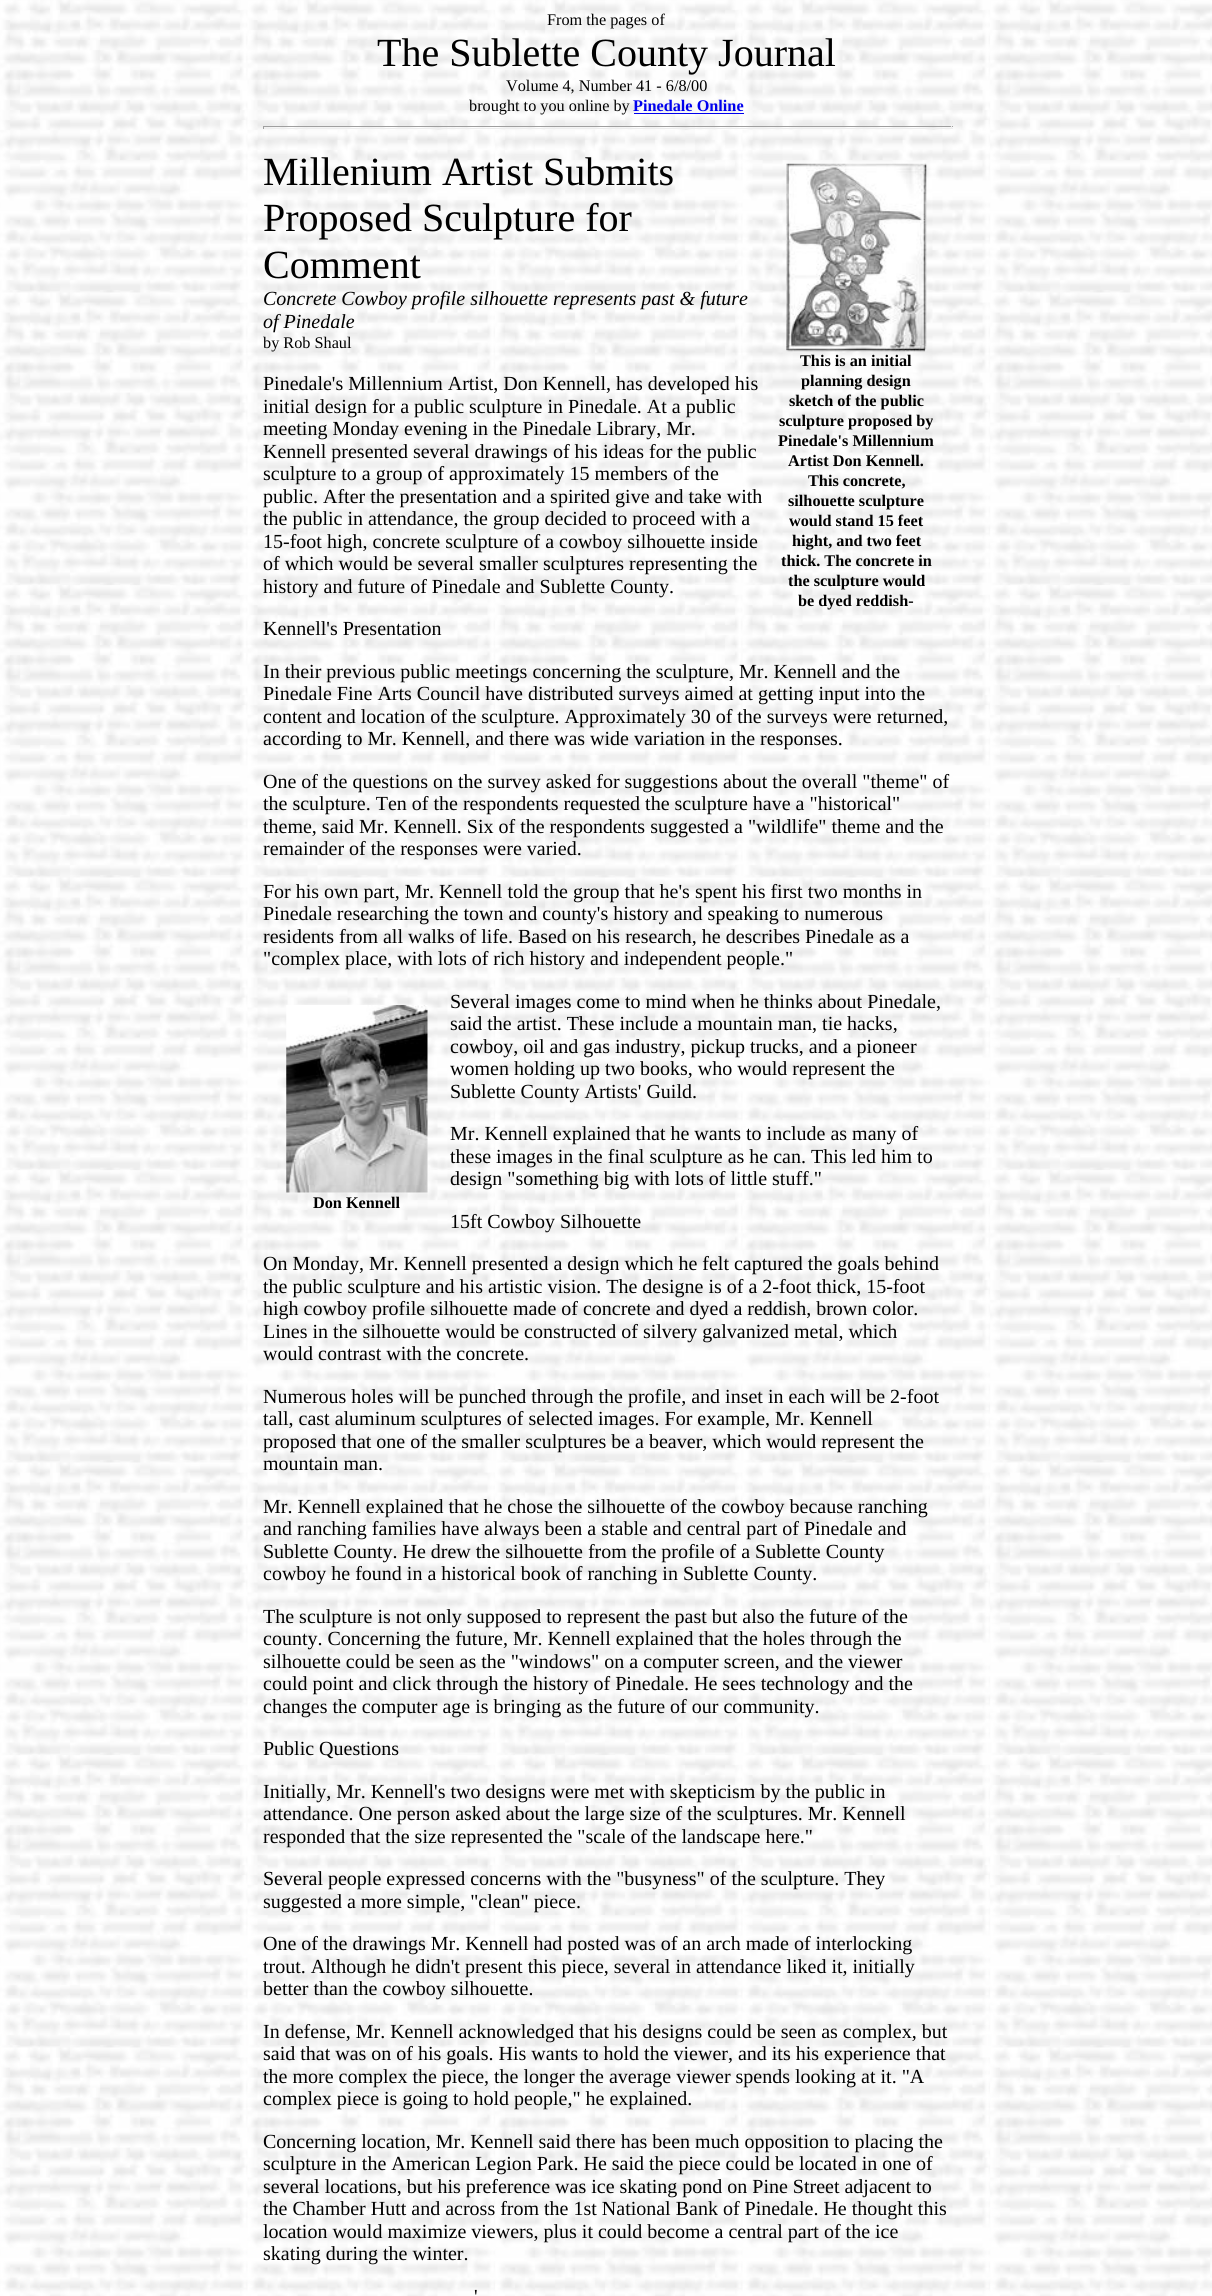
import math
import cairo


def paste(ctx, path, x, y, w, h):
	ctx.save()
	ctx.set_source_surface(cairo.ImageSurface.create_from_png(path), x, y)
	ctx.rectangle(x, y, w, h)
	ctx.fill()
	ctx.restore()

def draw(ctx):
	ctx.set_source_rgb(1, 1, 1)
	ctx.paint()
	paste(ctx, 'media/1.png', 0, 0, 1212, 2296)
	ctx.select_font_face('Liberation Serif')
	ctx.set_font_size(16.25)
	ctx.set_source_rgb(0, 0, 0)
	ctx.move_to(547, 25)
	ctx.show_text('From the pages of')
	ctx.set_font_size(40)
	ctx.move_to(377, 66)
	ctx.show_text('The Sublette County Journal')
	ctx.set_font_size(16.25)
	ctx.move_to(506, 91)
	ctx.show_text('Volume 4, Number 41 - 6/8/00')
	ctx.move_to(469, 111)
	ctx.show_text('brought to you online by')
	ctx.select_font_face('Liberation Serif', cairo.FONT_SLANT_NORMAL, cairo.FONT_WEIGHT_BOLD)
	ctx.set_source_rgb(0, 0, 0.933)
	ctx.move_to(633, 111)
	ctx.show_text('Pinedale Online')
	ctx.rectangle(634, 113, 110, 1)
	ctx.fill()
	ctx.set_source_rgb(0.624, 0.624, 0.624)
	ctx.rectangle(263, 126, 690, 1)
	ctx.fill()
	ctx.set_source_rgb(0.933, 0.933, 0.933)
	ctx.rectangle(951, 126, 1, 3)
	ctx.rectangle(263, 128, 690, 1)
	ctx.fill()
	ctx.set_source_rgb(0.624, 0.624, 0.624)
	ctx.rectangle(263, 126, 1, 3)
	ctx.fill()
	ctx.select_font_face('Liberation Serif')
	ctx.set_font_size(40)
	ctx.set_source_rgb(0, 0, 0)
	for x, y, s in [
		(263, 185, 'Millenium Artist Submits'),
		(263, 231, 'Proposed Sculpture for'),
		(263, 278, 'Comment'),
	]:
		ctx.move_to(x, y)
		ctx.show_text(s)
	ctx.select_font_face('Liberation Serif', cairo.FONT_SLANT_ITALIC)
	ctx.set_font_size(20)
	ctx.move_to(263, 305)
	ctx.show_text('Concrete Cowboy profile silhouette represents past & future')
	ctx.move_to(263, 328)
	ctx.show_text('of Pinedale')
	ctx.select_font_face('Liberation Serif')
	ctx.set_font_size(16.25)
	ctx.move_to(263, 348)
	ctx.show_text('by Rob Shaul')
	paste(ctx, 'media/2.png', 786, 163, 141, 189)
	ctx.select_font_face('Liberation Serif', cairo.FONT_SLANT_NORMAL, cairo.FONT_WEIGHT_BOLD)
	for x, y, s in [
		(800, 366, 'This is an initial'),
		(801, 386, 'planning design'),
		(789, 406, 'sketch of the public'),
		(779, 426, 'sculpture proposed by'),
		(778, 446, 'Pinedale\'s Millennium'),
		(788, 466, 'Artist Don Kennell.'),
		(808, 486, 'This concrete,'),
		(788, 506, 'silhouette sculpture'),
		(789, 526, 'would stand 15 feet'),
		(792, 546, 'hight, and two feet'),
		(781, 566, 'thick. The concrete in'),
		(788, 586, 'the sculpture would'),
		(798, 606, 'be dyed reddish-'),
	]:
		ctx.move_to(x, y)
		ctx.show_text(s)
	ctx.select_font_face('Liberation Serif')
	ctx.set_font_size(20)
	for x, y, s in [
		(263, 390, 'Pinedale\'s Millennium Artist, Don Kennell, has developed his'),
		(263, 413, 'initial design for a public sculpture in Pinedale. At a public'),
		(263, 435, 'meeting Monday evening in the Pinedale Library, Mr.'),
		(263, 458, 'Kennell presented several drawings of his ideas for the public'),
		(263, 480, 'sculpture to a group of approximately 15 members of the'),
		(263, 503, 'public. After the presentation and a spirited give and take with'),
		(263, 525, 'the public in attendance, the group decided to proceed with a'),
		(263, 548, '15-foot high, concrete sculpture of a cowboy silhouette inside'),
		(263, 570, 'of which would be several smaller sculptures representing the'),
		(263, 593, 'history and future of Pinedale and Sublette County.'),
		(263, 635, 'Kennell\'s Presentation'),
		(263, 678, 'In their previous public meetings concerning the sculpture, Mr. Kennell and the'),
		(263, 700, 'Pinedale Fine Arts Council have distributed surveys aimed at getting input into the'),
		(263, 723, 'content and location of the sculpture. Approximately 30 of the surveys were returned,'),
		(263, 745, 'according to Mr. Kennell, and there was wide variation in the responses.'),
		(263, 788, 'One of the questions on the survey asked for suggestions about the overall "theme" of'),
		(263, 810, 'the sculpture. Ten of the respondents requested the sculpture have a "historical"'),
		(263, 833, 'theme, said Mr. Kennell. Six of the respondents suggested a "wildlife" theme and the'),
		(263, 855, 'remainder of the responses were varied.'),
		(263, 898, 'For his own part, Mr. Kennell told the group that he\'s spent his first two months in'),
		(263, 920, 'Pinedale researching the town and county\'s history and speaking to numerous'),
		(263, 943, 'residents from all walks of life. Based on his research, he describes Pinedale as a'),
		(263, 965, '"complex place, with lots of rich history and independent people."'),
		(450, 1008, 'Several images come to mind when he thinks about Pinedale,'),
		(450, 1030, 'said the artist. These include a mountain man, tie hacks,'),
		(450, 1053, 'cowboy, oil and gas industry, pickup trucks, and a pioneer'),
		(450, 1075, 'women holding up two books, who would represent the'),
		(450, 1098, 'Sublette County Artists\' Guild.'),
	]:
		ctx.move_to(x, y)
		ctx.show_text(s)
	paste(ctx, 'media/3.png', 286, 1005, 142, 188)
	ctx.select_font_face('Liberation Serif', cairo.FONT_SLANT_NORMAL, cairo.FONT_WEIGHT_BOLD)
	ctx.set_font_size(16.25)
	ctx.move_to(313, 1208)
	ctx.show_text('Don Kennell')
	ctx.select_font_face('Liberation Serif')
	ctx.set_font_size(20)
	for x, y, s in [
		(450, 1140, 'Mr. Kennell explained that he wants to include as many of'),
		(450, 1163, 'these images in the final sculpture as he can. This led him to'),
		(450, 1185, 'design "something big with lots of little stuff."'),
		(450, 1228, '15ft Cowboy Silhouette'),
		(263, 1270, 'On Monday, Mr. Kennell presented a design which he felt captured the goals behind'),
		(263, 1293, 'the public sculpture and his artistic vision. The designe is of a 2-foot thick, 15-foot'),
		(263, 1315, 'high cowboy profile silhouette made of concrete and dyed a reddish, brown color.'),
		(263, 1338, 'Lines in the silhouette would be constructed of silvery galvanized metal, which'),
		(263, 1360, 'would contrast with the concrete.'),
		(263, 1403, 'Numerous holes will be punched through the profile, and inset in each will be 2-foot'),
		(263, 1425, 'tall, cast aluminum sculptures of selected images. For example, Mr. Kennell'),
		(263, 1448, 'proposed that one of the smaller sculptures be a beaver, which would represent the'),
		(263, 1470, 'mountain man.'),
		(263, 1513, 'Mr. Kennell explained that he chose the silhouette of the cowboy because ranching'),
		(263, 1535, 'and ranching families have always been a stable and central part of Pinedale and'),
		(263, 1558, 'Sublette County. He drew the silhouette from the profile of a Sublette County'),
		(263, 1580, 'cowboy he found in a historical book of ranching in Sublette County.'),
		(263, 1623, 'The sculpture is not only supposed to represent the past but also the future of the'),
		(263, 1645, 'county. Concerning the future, Mr. Kennell explained that the holes through the'),
		(263, 1668, 'silhouette could be seen as the "windows" on a computer screen, and the viewer'),
		(263, 1690, 'could point and click through the history of Pinedale. He sees technology and the'),
		(263, 1713, 'changes the computer age is bringing as the future of our community.'),
		(263, 1755, 'Public Questions'),
		(263, 1798, 'Initially, Mr. Kennell\'s two designs were met with skepticism by the public in'),
		(263, 1820, 'attendance. One person asked about the large size of the sculptures. Mr. Kennell'),
		(263, 1843, 'responded that the size represented the "scale of the landscape here."'),
		(263, 1885, 'Several people expressed concerns with the "busyness" of the sculpture. They'),
		(263, 1908, 'suggested a more simple, "clean" piece.'),
		(263, 1950, 'One of the drawings Mr. Kennell had posted was of an arch made of interlocking'),
		(263, 1973, 'trout. Although he didn\'t present this piece, several in attendance liked it, initially'),
		(263, 1995, 'better than the cowboy silhouette.'),
		(263, 2038, 'In defense, Mr. Kennell acknowledged that his designs could be seen as complex, but'),
		(263, 2060, 'said that was on of his goals. His wants to hold the viewer, and its his experience that'),
		(263, 2083, 'the more complex the piece, the longer the average viewer spends looking at it. "A'),
		(263, 2105, 'complex piece is going to hold people," he explained.'),
		(263, 2148, 'Concerning location, Mr. Kennell said there has been much opposition to placing the'),
		(263, 2170, 'sculpture in the American Legion Park. He said the piece could be located in one of'),
		(263, 2193, 'several locations, but his preference was ice skating pond on Pine Street adjacent to'),
		(263, 2215, 'the Chamber Hutt and across from the 1st National Bank of Pinedale. He thought this'),
		(263, 2238, 'location would maximize viewers, plus it could become a central part of the ice'),
		(263, 2260, 'skating during the winter.'),
		(474, 2303, '\''),
	]:
		ctx.move_to(x, y)
		ctx.show_text(s)


surface = cairo.ImageSurface(cairo.FORMAT_RGB24, 1212, 2296)
ctx = cairo.Context(surface)
options = cairo.FontOptions()
options.set_hint_metrics(cairo.HINT_METRICS_OFF)
options.set_hint_style(cairo.HINT_STYLE_NONE)
ctx.set_font_options(options)
ctx.set_miter_limit(4)
draw(ctx)
surface.write_to_png('image.png')
